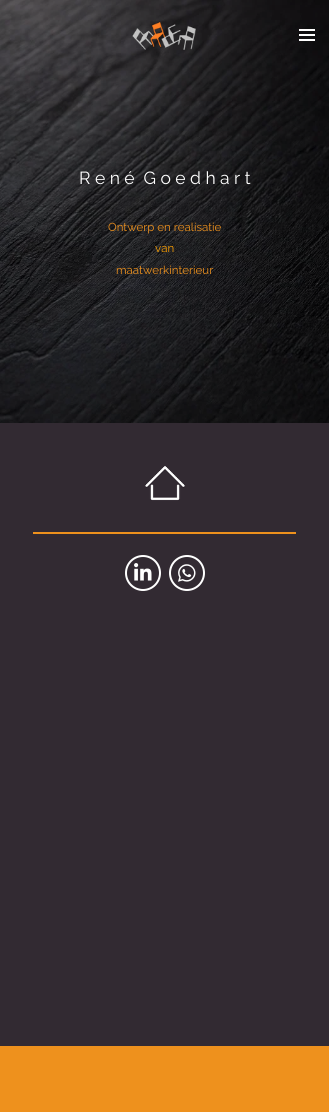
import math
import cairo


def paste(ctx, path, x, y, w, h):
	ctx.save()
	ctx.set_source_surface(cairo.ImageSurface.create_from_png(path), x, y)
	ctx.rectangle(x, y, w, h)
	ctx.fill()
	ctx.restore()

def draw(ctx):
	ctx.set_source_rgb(0.196, 0.165, 0.196)
	ctx.paint()
	paste(ctx, 'media/2.png', 0, 0, 329, 423)
	paste(ctx, 'media/1.png', 132, 21, 64, 29)
	ctx.set_source_rgb(1, 1, 1)
	ctx.rectangle(299, 34, 16, 2)
	ctx.rectangle(299, 29, 16, 2)
	ctx.rectangle(299, 39, 16, 2)
	ctx.fill()
	ctx.select_font_face('Raleway')
	ctx.set_font_size(17.5)
	ctx.move_to(79, 184)
	ctx.show_text('R e n é  G o e d h a r t')
	ctx.set_font_size(11.5)
	ctx.set_source_rgb(0.933, 0.569, 0.114)
	ctx.move_to(108, 231)
	ctx.show_text('Ontwerp en realisatie')
	ctx.set_source_rgb(0.984, 0.627, 0.016)
	ctx.move_to(155, 252)
	ctx.show_text('van')
	ctx.set_source_rgb(0.933, 0.569, 0.114)
	ctx.move_to(116, 274)
	ctx.show_text('maatwerkinterieur')
	paste(ctx, 'media/3.png', 145, 466, 40, 35)
	ctx.rectangle(33, 532, 263, 2)
	ctx.fill()
	ctx.arc(143, 573, 17, 0, 2 * math.pi)
	ctx.set_source_rgb(1, 1, 1)
	ctx.stroke()
	paste(ctx, 'media/4.png', 134, 563, 18, 18)
	ctx.arc(187, 573, 17, 0, 2 * math.pi)
	ctx.stroke()
	paste(ctx, 'media/5.png', 178, 564, 18, 18)
	ctx.set_source_rgb(0.933, 0.569, 0.114)
	ctx.rectangle(0, 1046, 329, 66)
	ctx.fill()


surface = cairo.ImageSurface(cairo.FORMAT_RGB24, 329, 1112)
ctx = cairo.Context(surface)
options = cairo.FontOptions()
options.set_hint_metrics(cairo.HINT_METRICS_OFF)
options.set_hint_style(cairo.HINT_STYLE_NONE)
ctx.set_font_options(options)
ctx.set_miter_limit(4)
draw(ctx)
surface.write_to_png('image.png')
